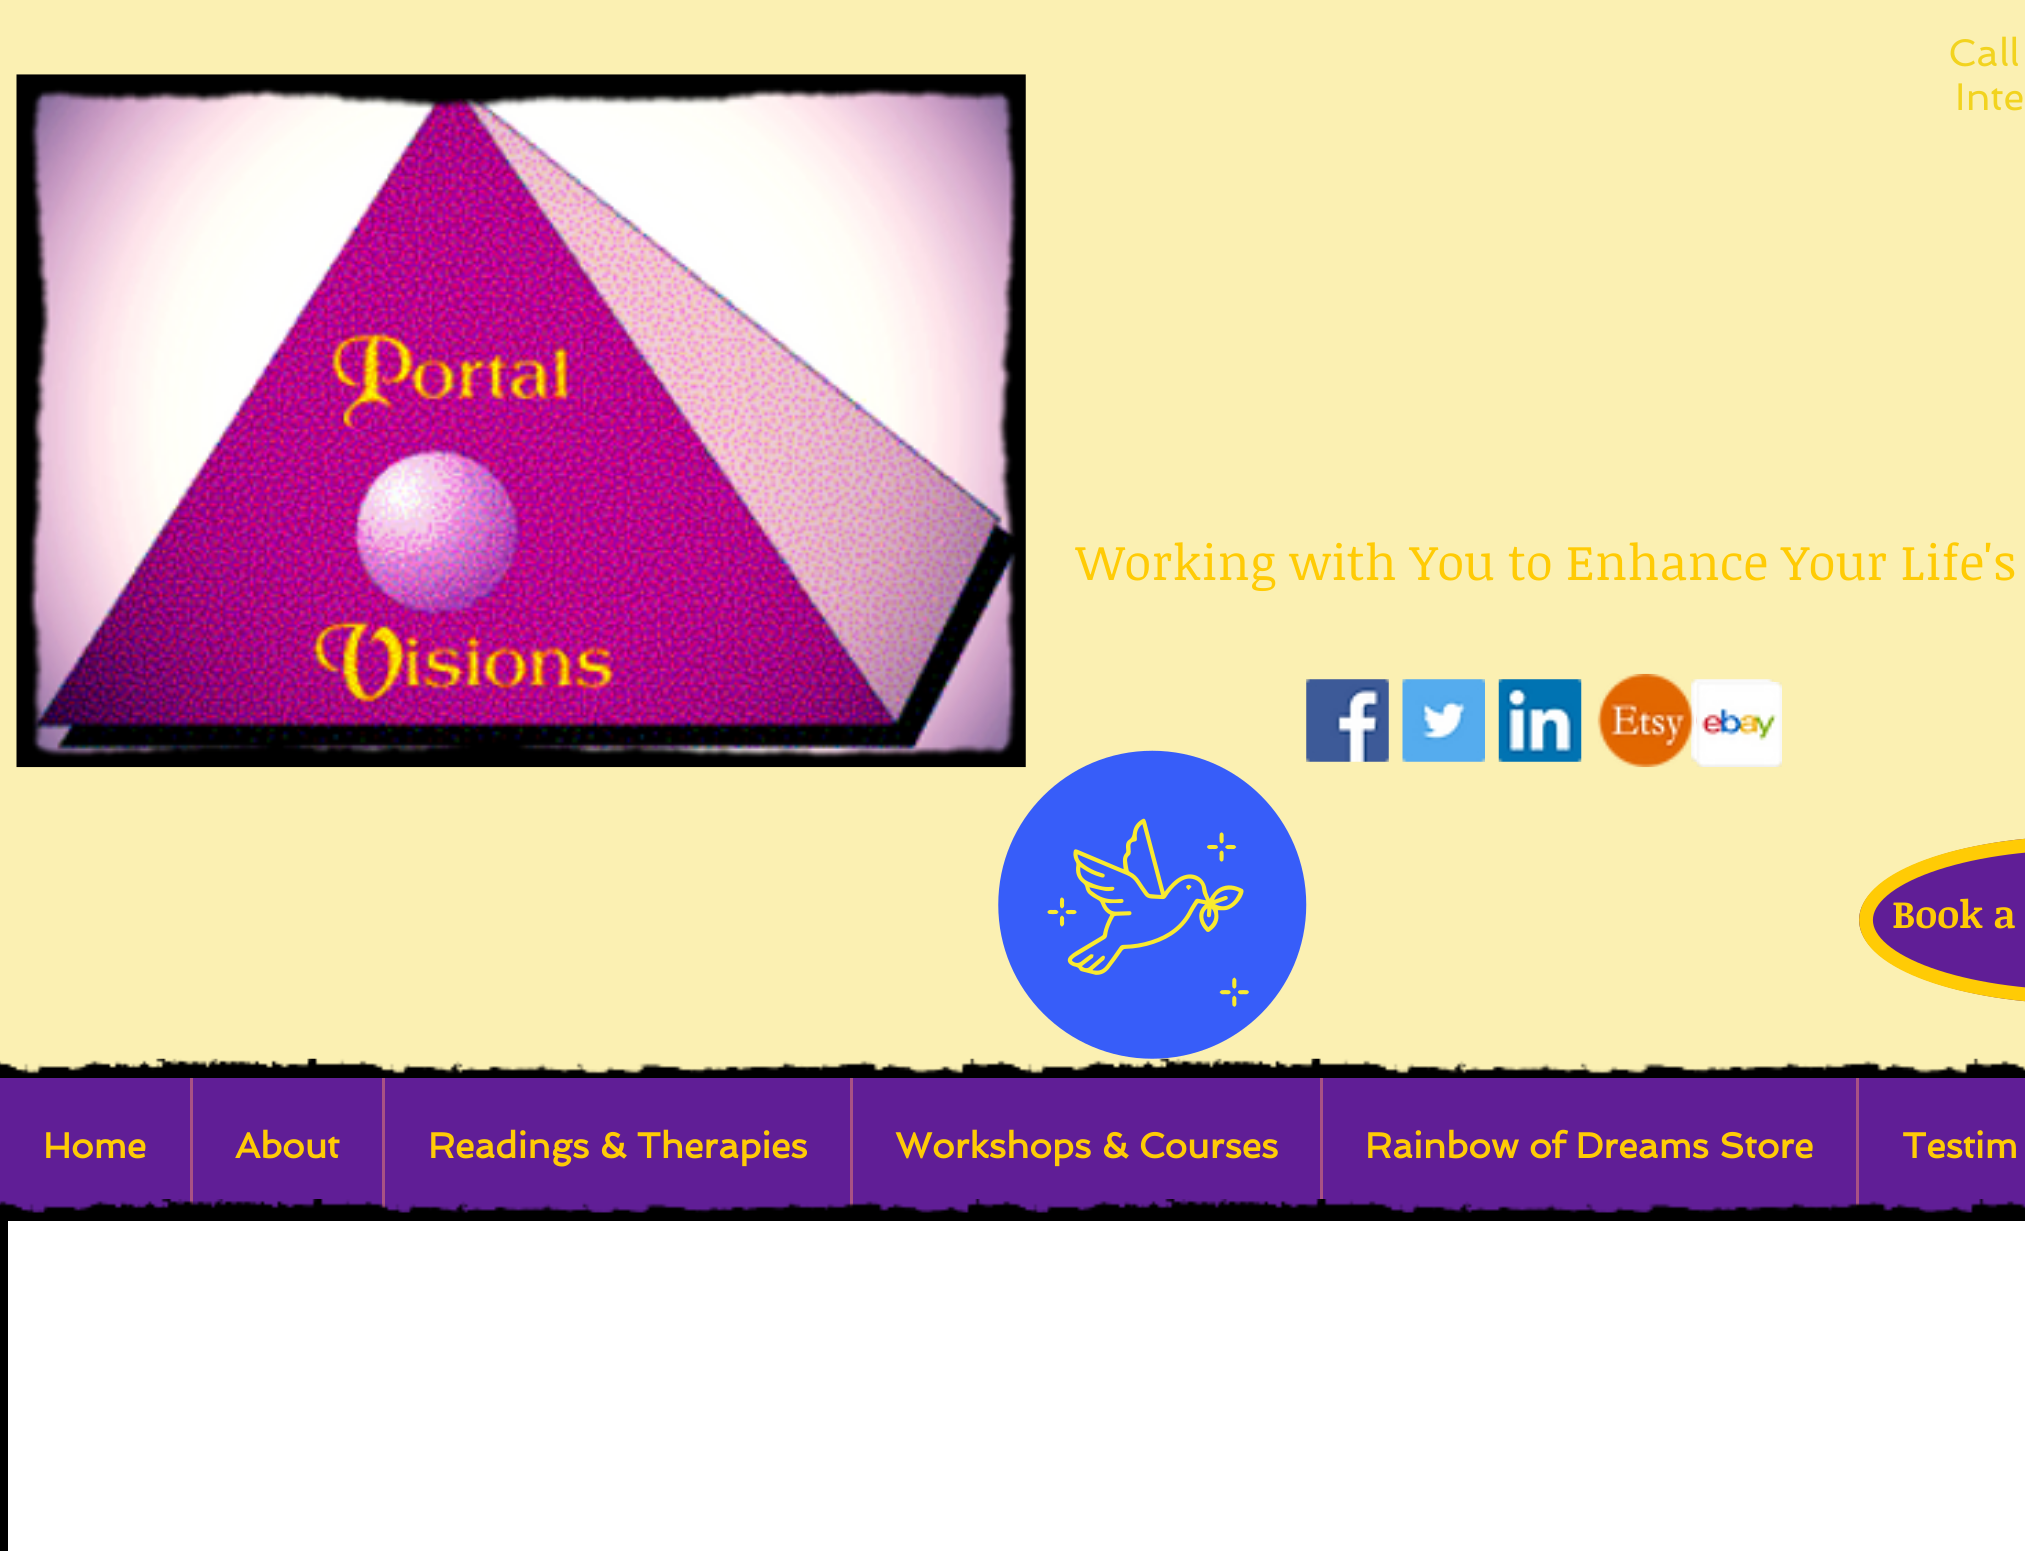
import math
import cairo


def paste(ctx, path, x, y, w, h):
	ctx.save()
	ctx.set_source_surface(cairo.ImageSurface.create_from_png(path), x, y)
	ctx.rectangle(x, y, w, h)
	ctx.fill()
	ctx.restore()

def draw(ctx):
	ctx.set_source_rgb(0.984, 0.941, 0.698)
	ctx.paint()
	paste(ctx, 'media/1.png', 16, 74, 1010, 694)
	ctx.select_font_face('Spinnaker')
	ctx.set_font_size(38.5)
	ctx.set_source_rgb(0.949, 0.827, 0.122)
	ctx.move_to(1948, 66)
	ctx.show_text('Call')
	ctx.move_to(1955, 110)
	ctx.show_text('Inte')
	ctx.select_font_face('Noticia Text')
	ctx.set_font_size(49.5)
	ctx.set_source_rgb(1, 0.796, 0.02)
	ctx.move_to(1076, 580)
	ctx.show_text('Working with You to Enhance Your Life\'s')
	paste(ctx, 'media/6.png', 1599, 681, 51, 71)
	paste(ctx, 'media/7.png', 1691, 679, 83, 83)
	paste(ctx, 'media/2.png', 1597, 673, 97, 95)
	paste(ctx, 'media/3.png', 1306, 679, 83, 83)
	paste(ctx, 'media/4.png', 1402, 679, 83, 83)
	paste(ctx, 'media/5.png', 1498, 679, 84, 83)
	paste(ctx, 'media/8.png', 1696, 682, 86, 85)
	paste(ctx, 'media/9.png', 998, 750, 309, 309)
	ctx.set_source_rgb(0.376, 0.118, 0.588)
	ctx.new_path()
	ctx.move_to(2082, 836)
	ctx.curve_to(2205, 836, 2305, 873.5, 2305, 920)
	ctx.curve_to(2305, 966.5, 2205, 1004, 2082, 1004)
	ctx.curve_to(1959, 1004, 1859, 966.5, 1859, 920)
	ctx.curve_to(1859, 873.5, 1959, 836, 2082, 836)
	ctx.close_path()
	ctx.fill()
	ctx.new_path()
	ctx.move_to(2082, 843)
	ctx.curve_to(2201, 843, 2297.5, 877.5, 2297.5, 920)
	ctx.curve_to(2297.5, 962.5, 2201, 997, 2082, 997)
	ctx.curve_to(1962.5, 997, 1866, 962.5, 1866, 920)
	ctx.curve_to(1866, 877.5, 1962.5, 843, 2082, 843)
	ctx.close_path()
	ctx.set_source_rgb(1, 0.796, 0.02)
	ctx.set_line_width(13.8)
	ctx.stroke()
	ctx.select_font_face('Noticia Text', cairo.FONT_SLANT_NORMAL, cairo.FONT_WEIGHT_BOLD)
	ctx.set_font_size(38.5)
	ctx.move_to(1892, 928)
	ctx.show_text('Book a')
	paste(ctx, 'media/10.png', 0, 1058, 2025, 20)
	ctx.set_source_rgb(0.376, 0.118, 0.588)
	ctx.rectangle(0, 1078, 2025, 135)
	ctx.fill()
	ctx.select_font_face('Spinnaker', cairo.FONT_SLANT_NORMAL, cairo.FONT_WEIGHT_BOLD)
	ctx.set_font_size(35.75)
	ctx.set_source_rgb(1, 0.796, 0.02)
	ctx.move_to(43, 1158)
	ctx.show_text('Home')
	ctx.set_source_rgb(0.659, 0.322, 0.518)
	ctx.rectangle(190, 1078, 3, 135)
	ctx.fill()
	ctx.set_source_rgb(1, 0.796, 0.02)
	ctx.move_to(235, 1158)
	ctx.show_text('About')
	ctx.set_source_rgb(0.659, 0.322, 0.518)
	ctx.rectangle(382, 1078, 3, 135)
	ctx.fill()
	ctx.set_source_rgb(1, 0.796, 0.02)
	ctx.move_to(428, 1158)
	ctx.show_text('Readings & Therapies')
	ctx.set_source_rgb(0.659, 0.322, 0.518)
	ctx.rectangle(850, 1078, 3, 135)
	ctx.fill()
	ctx.set_source_rgb(1, 0.796, 0.02)
	ctx.move_to(895, 1158)
	ctx.show_text('Workshops & Courses')
	ctx.set_source_rgb(0.659, 0.322, 0.518)
	ctx.rectangle(1320, 1078, 3, 125)
	ctx.fill()
	ctx.set_source_rgb(1, 0.796, 0.02)
	ctx.move_to(1365, 1158)
	ctx.show_text('Rainbow of Dreams Store')
	ctx.set_source_rgb(0.659, 0.322, 0.518)
	ctx.rectangle(1856, 1078, 3, 135)
	ctx.fill()
	ctx.set_source_rgb(1, 0.796, 0.02)
	ctx.move_to(1902, 1158)
	ctx.show_text('Testim')
	paste(ctx, 'media/11.png', 24, 1212, 1949, 2)
	paste(ctx, 'media/12.png', 0, 1199, 2025, 27)
	ctx.set_source_rgb(0, 0, 0)
	ctx.rectangle(0, 1226, 8, 325)
	ctx.fill()
	ctx.set_source_rgb(1, 1, 1)
	ctx.rectangle(8, 1221, 2017, 330)
	ctx.fill()


surface = cairo.ImageSurface(cairo.FORMAT_RGB24, 2025, 1551)
ctx = cairo.Context(surface)
options = cairo.FontOptions()
options.set_hint_metrics(cairo.HINT_METRICS_OFF)
options.set_hint_style(cairo.HINT_STYLE_NONE)
ctx.set_font_options(options)
ctx.set_miter_limit(4)
draw(ctx)
surface.write_to_png('image.png')
